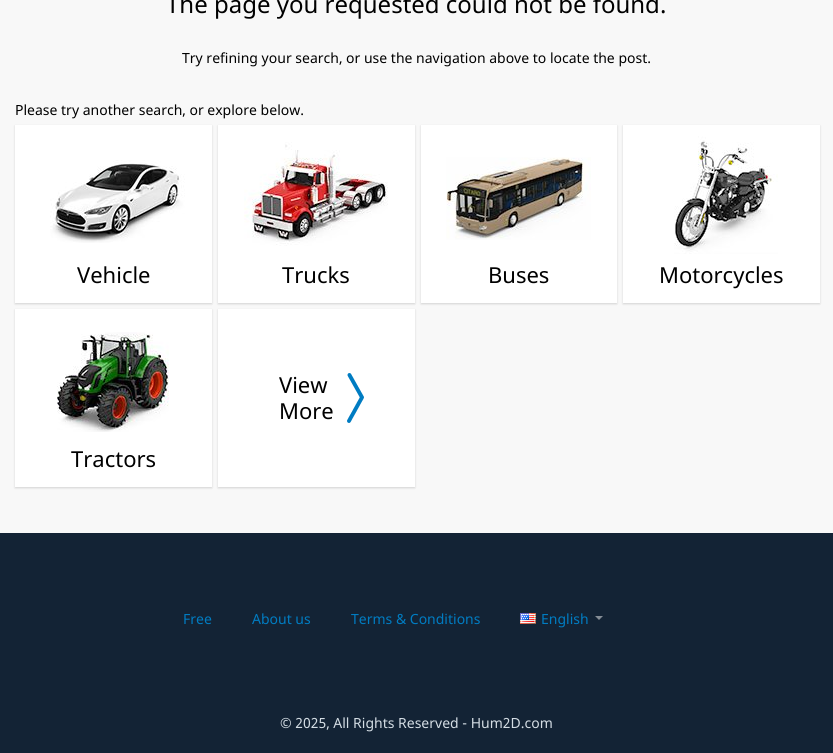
import math
import cairo


def round_path(ctx, x, y, w, h, r):
	ctx.new_sub_path()
	for i, (u, v) in enumerate([(x + w - r, y + h - r), (x + r, y + h - r), (x + r, y + r), (x + w - r, y + r)]):
		ctx.arc(u, v, r, i * math.pi / 2, (i + 1) * math.pi / 2)
	ctx.close_path()

def blur_box(ctx, x, y, w, h, r, blur, alpha):
	ctx.push_group_with_content(cairo.CONTENT_ALPHA)
	ctx.set_operator(cairo.OPERATOR_SOURCE)
	for i in range(15, -16, -2):
		e = blur * i / 6
		if min(w, h) + 2 * e > 0:
			ctx.set_source_rgba(0, 0, 0, alpha * math.erfc((i - 1) / 8.5) / 2)
			round_path(ctx, x - e, y - e, w + 2 * e, h + 2 * e, max(0, min(r + e + blur * .6, min(w, h) / 2 + e)))
			ctx.fill()
	ctx.mask(ctx.pop_group())

def paste(ctx, path, x, y, w, h):
	ctx.save()
	ctx.set_source_surface(cairo.ImageSurface.create_from_png(path), x, y)
	ctx.rectangle(x, y, w, h)
	ctx.fill()
	ctx.restore()

def draw(ctx):
	ctx.set_source_rgb(0.969, 0.969, 0.969)
	ctx.paint()
	ctx.select_font_face('Noto Sans')
	ctx.set_font_size(24)
	ctx.set_source_rgb(0, 0, 0)
	ctx.move_to(166, 13)
	ctx.show_text('The page you requested could not be found.')
	ctx.set_font_size(14)
	ctx.move_to(182, 63)
	ctx.show_text('Try refining your search, or use the navigation above to locate the post.')
	ctx.move_to(15, 115)
	ctx.show_text('Please try another search, or explore below.')
	ctx.set_source_rgb(0, 0, 0)
	blur_box(ctx, 15, 126, 197, 178, 0, 1, 0.15)
	ctx.set_source_rgb(1, 1, 1)
	ctx.rectangle(15, 125, 197, 178)
	ctx.fill()
	paste(ctx, 'media/1.png', 50, 160, 135, 83)
	ctx.set_font_size(22)
	ctx.set_source_rgb(0, 0, 0)
	ctx.move_to(77, 283)
	ctx.show_text('Vehicle')
	ctx.set_source_rgb(0, 0, 0)
	blur_box(ctx, 218, 126, 197, 178, 0, 1, 0.15)
	ctx.set_source_rgb(1, 1, 1)
	ctx.rectangle(218, 125, 197, 178)
	ctx.fill()
	paste(ctx, 'media/2.png', 244, 142, 144, 104)
	ctx.set_source_rgb(0, 0, 0)
	ctx.move_to(282, 283)
	ctx.show_text('Trucks')
	ctx.set_source_rgb(0, 0, 0)
	blur_box(ctx, 421, 126, 196, 178, 0, 1, 0.15)
	ctx.set_source_rgb(1, 1, 1)
	ctx.rectangle(421, 125, 196, 178)
	ctx.fill()
	paste(ctx, 'media/3.png', 446, 157, 145, 83)
	ctx.set_source_rgb(0, 0, 0)
	ctx.move_to(488, 283)
	ctx.show_text('Buses')
	ctx.set_source_rgb(0, 0, 0)
	blur_box(ctx, 623, 126, 197, 178, 0, 1, 0.15)
	ctx.set_source_rgb(1, 1, 1)
	ctx.rectangle(623, 125, 197, 178)
	ctx.fill()
	paste(ctx, 'media/4.png', 674, 136, 104, 118)
	ctx.set_source_rgb(0, 0, 0)
	ctx.move_to(659, 283)
	ctx.show_text('Motorcycles')
	ctx.set_source_rgb(0, 0, 0)
	blur_box(ctx, 218, 310, 197, 178, 0, 1, 0.15)
	ctx.set_source_rgb(1, 1, 1)
	ctx.rectangle(218, 309, 197, 178)
	ctx.fill()
	ctx.set_source_rgb(0, 0, 0)
	ctx.move_to(279, 393)
	ctx.show_text('View')
	paste(ctx, 'media/5.png', 347, 373, 17, 50)
	ctx.move_to(279, 419)
	ctx.show_text('More')
	ctx.set_source_rgb(0, 0, 0)
	blur_box(ctx, 15, 310, 197, 178, 0, 1, 0.15)
	ctx.set_source_rgb(1, 1, 1)
	ctx.rectangle(15, 309, 197, 178)
	ctx.fill()
	paste(ctx, 'media/6.png', 57, 332, 112, 100)
	ctx.set_source_rgb(0, 0, 0)
	ctx.move_to(71, 467)
	ctx.show_text('Tractors')
	ctx.set_source_rgb(0.078, 0.137, 0.208)
	ctx.rectangle(0, 533, 833, 220)
	ctx.fill()
	ctx.set_font_size(14)
	ctx.set_source_rgb(0, 0.486, 0.761)
	for x, y, s in [
		(183, 624, 'Free'),
		(252, 624, 'About us'),
		(351, 624, 'Terms & Conditions'),
	]:
		ctx.move_to(x, y)
		ctx.show_text(s)
	paste(ctx, 'media/7.png', 520, 613, 16, 11)
	ctx.move_to(541, 624)
	ctx.show_text('English')
	ctx.set_source_rgb(0.522, 0.553, 0.588)
	ctx.new_path()
	ctx.move_to(595, 616)
	ctx.line_to(603, 616)
	ctx.line_to(599, 620)
	ctx.close_path()
	ctx.fill()
	ctx.set_source_rgb(0.831, 0.867, 0.894)
	ctx.move_to(280, 728)
	ctx.show_text('© 2025, All Rights Reserved - Hum2D.com')


surface = cairo.ImageSurface(cairo.FORMAT_RGB24, 833, 753)
ctx = cairo.Context(surface)
options = cairo.FontOptions()
options.set_hint_metrics(cairo.HINT_METRICS_OFF)
options.set_hint_style(cairo.HINT_STYLE_NONE)
ctx.set_font_options(options)
ctx.set_miter_limit(4)
draw(ctx)
surface.write_to_png('image.png')
